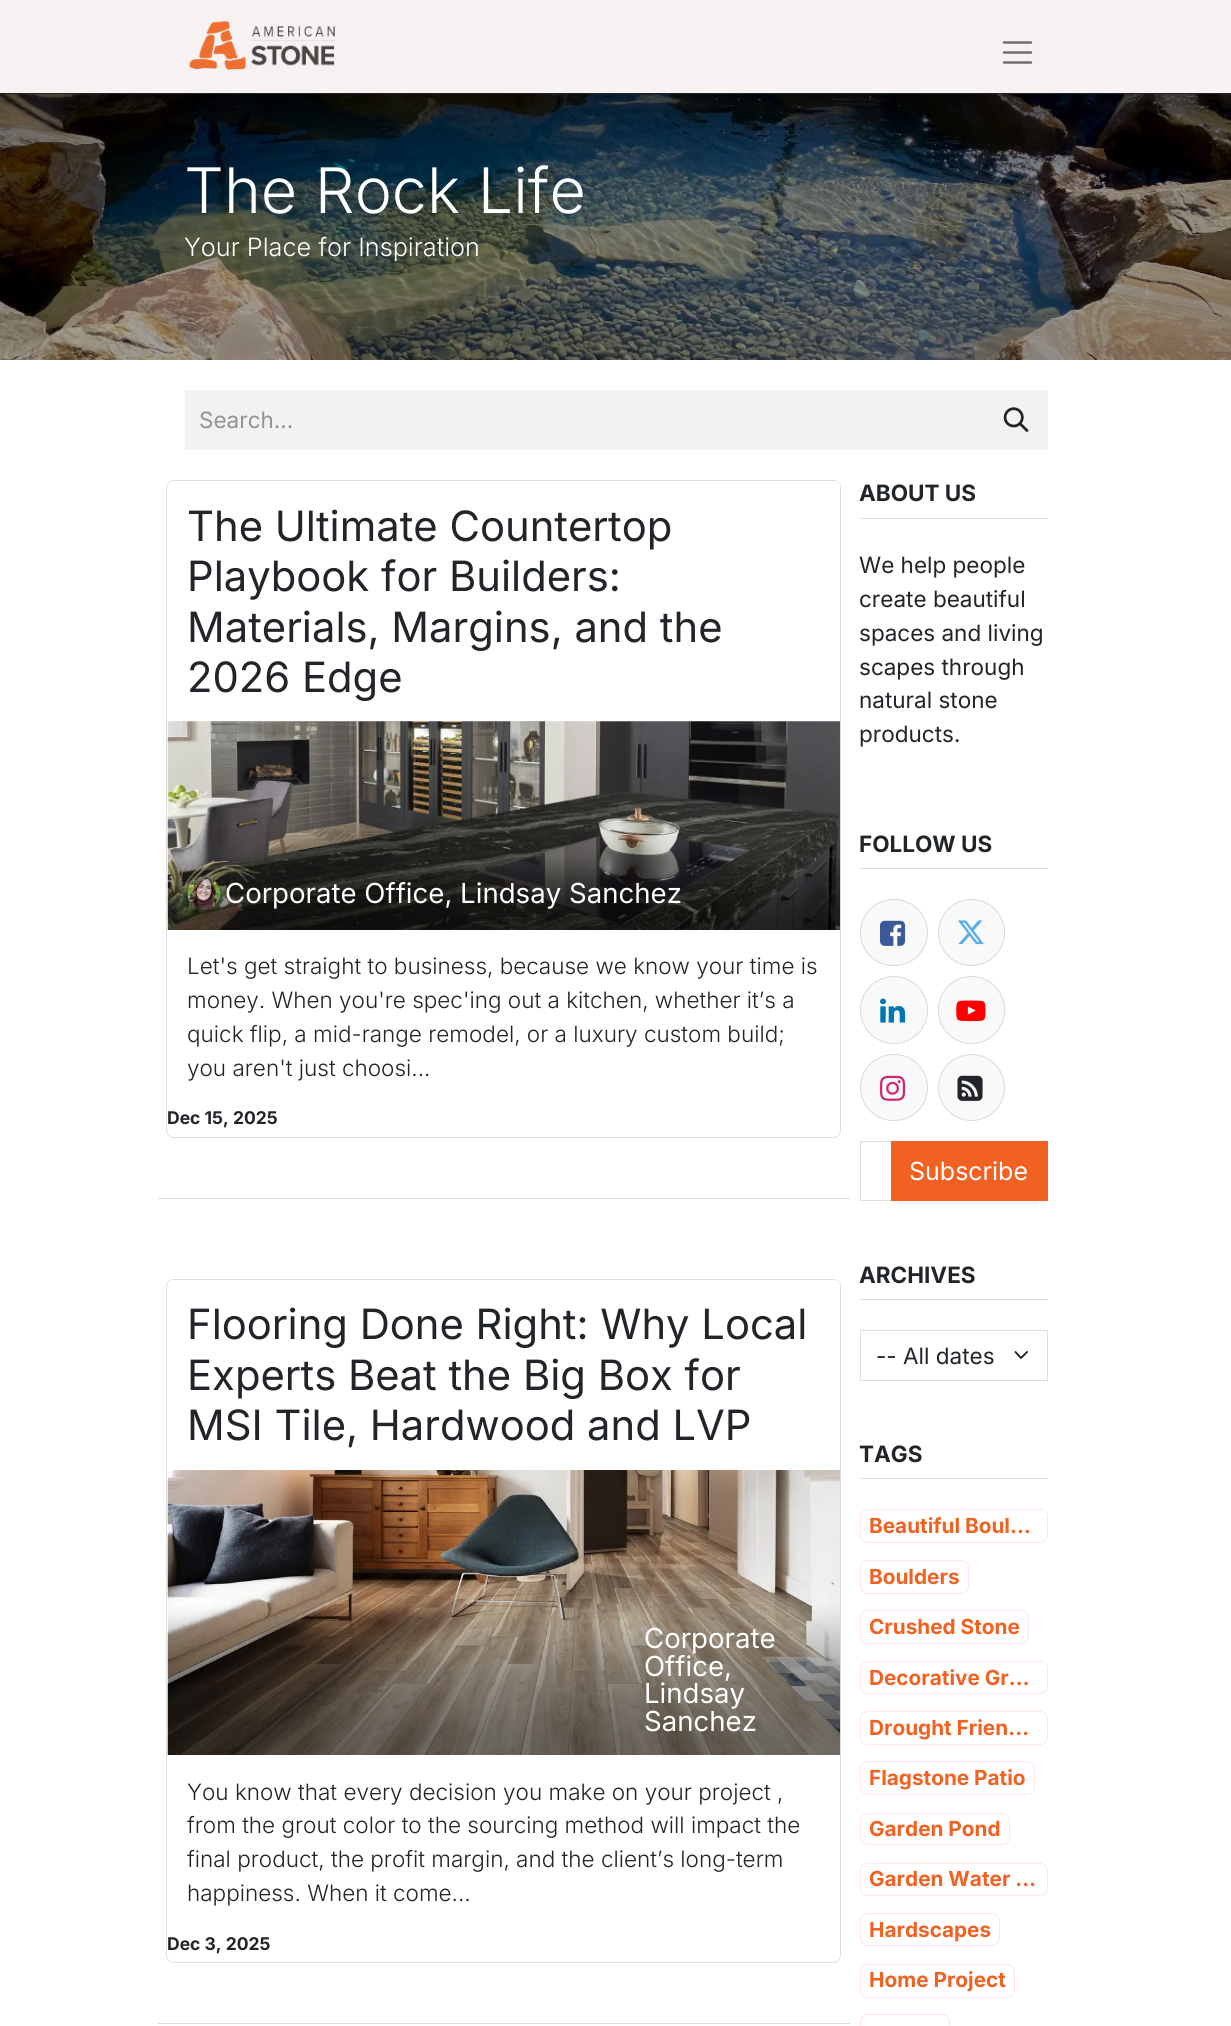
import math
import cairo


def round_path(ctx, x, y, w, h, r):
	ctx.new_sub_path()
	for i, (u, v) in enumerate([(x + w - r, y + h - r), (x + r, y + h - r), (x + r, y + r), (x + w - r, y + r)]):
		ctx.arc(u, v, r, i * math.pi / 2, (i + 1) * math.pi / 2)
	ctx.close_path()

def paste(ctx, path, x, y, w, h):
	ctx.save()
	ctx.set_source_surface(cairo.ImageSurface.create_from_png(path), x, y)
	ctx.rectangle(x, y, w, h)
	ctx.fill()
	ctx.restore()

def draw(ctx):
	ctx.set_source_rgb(1, 1, 1)
	ctx.paint()
	ctx.set_source_rgb(0.961, 0.949, 0.949)
	ctx.rectangle(0, 0, 1231, 93)
	ctx.fill()
	ctx.set_source_rgb(0.129, 0.145, 0.161)
	ctx.rectangle(0, 93, 1231, 1)
	ctx.fill()
	paste(ctx, 'media/1.png', 189, 21, 146, 49)
	ctx.new_path()
	ctx.move_to(1004, 42.5)
	ctx.line_to(1031, 42.5)
	ctx.move_to(1004, 52.5)
	ctx.line_to(1031, 52.5)
	ctx.move_to(1004, 62.5)
	ctx.line_to(1031, 62.5)
	ctx.set_source_rgb(0.431, 0.427, 0.427)
	ctx.set_line_width(2.5)
	ctx.set_line_cap(cairo.LINE_CAP_ROUND)
	ctx.stroke()
	paste(ctx, 'media/2.png', 0, 94, 1231, 266)
	ctx.select_font_face('Inter Light')
	ctx.set_font_size(62.75)
	ctx.set_source_rgb(1, 1, 1)
	ctx.move_to(184, 213)
	ctx.show_text('The Rock Life')
	ctx.set_font_size(25.25)
	ctx.move_to(184, 256)
	ctx.show_text('Your Place for Inspiration')
	ctx.set_source_rgb(0.953, 0.949, 0.949)
	ctx.rectangle(185, 390, 863, 60)
	ctx.fill()
	ctx.select_font_face('Inter')
	ctx.set_font_size(22.5)
	ctx.set_source_rgb(0.565, 0.573, 0.58)
	ctx.move_to(199, 428)
	ctx.show_text('Search...')
	paste(ctx, 'media/3.png', 1003, 407, 26, 26)
	round_path(ctx, 166.5, 480.5, 674, 657, 7.5)
	ctx.set_source_rgb(0.871, 0.871, 0.875)
	ctx.set_line_width(1)
	ctx.set_line_cap(cairo.LINE_CAP_BUTT)
	ctx.stroke()
	ctx.set_source_rgba(1, 1, 1, 0.9)
	ctx.new_path()
	ctx.move_to(174, 481)
	ctx.line_to(834, 481)
	ctx.curve_to(837.5, 481, 840, 483.5, 840, 487)
	ctx.line_to(840, 721)
	ctx.line_to(168, 721)
	ctx.line_to(168, 487)
	ctx.curve_to(168, 483.5, 170.5, 481, 174, 481)
	ctx.close_path()
	ctx.fill()
	ctx.set_font_size(41.75)
	ctx.set_source_rgb(0.129, 0.145, 0.161)
	for x, y, s in [
		(187, 541, 'The Ultimate Countertop'),
		(187, 591, 'Playbook for Builders:'),
		(187, 642, 'Materials, Margins, and the'),
		(187, 692, '2026 Edge'),
	]:
		ctx.move_to(x, y)
		ctx.show_text(s)
	paste(ctx, 'media/4.png', 167, 721, 673, 209)
	paste(ctx, 'media/5.png', 187, 876, 33, 34)
	ctx.set_font_size(27.6)
	ctx.set_source_rgb(1, 1, 1)
	ctx.move_to(225, 903)
	ctx.show_text('Corporate Office, Lindsay Sanchez')
	ctx.select_font_face('Inter Light')
	ctx.set_font_size(22.5)
	ctx.set_source_rgb(0.129, 0.145, 0.161)
	for x, y, s in [
		(187, 974, 'Let\'s get straight to business, because we know your time is'),
		(187, 1008, 'money. When you\'re spec\'ing out a kitchen, whether it’s a'),
		(187, 1042, 'quick flip, a mid-range remodel, or a luxury custom build;'),
		(187, 1076, 'you aren\'t just choosi...'),
	]:
		ctx.move_to(x, y)
		ctx.show_text(s)
	ctx.select_font_face('Inter', cairo.FONT_SLANT_NORMAL, cairo.FONT_WEIGHT_BOLD)
	ctx.set_font_size(17.5)
	ctx.move_to(167, 1124)
	ctx.show_text('Dec 15, 2025')
	ctx.set_source_rgb(0.871, 0.871, 0.875)
	ctx.rectangle(158, 1198, 692, 1)
	ctx.fill()
	round_path(ctx, 166.5, 1279.5, 674, 683, 7.5)
	ctx.stroke()
	ctx.set_source_rgba(1, 1, 1, 0.9)
	ctx.new_path()
	ctx.move_to(174, 1280)
	ctx.line_to(834, 1280)
	ctx.curve_to(837.5, 1280, 840, 1282.5, 840, 1286)
	ctx.line_to(840, 1470)
	ctx.line_to(168, 1470)
	ctx.line_to(168, 1286)
	ctx.curve_to(168, 1282.5, 170.5, 1280, 174, 1280)
	ctx.close_path()
	ctx.fill()
	ctx.select_font_face('Inter')
	ctx.set_font_size(41.75)
	ctx.set_source_rgb(0.129, 0.145, 0.161)
	for x, y, s in [
		(187, 1339, 'Flooring Done Right: Why Local'),
		(187, 1390, 'Experts Beat the Big Box for'),
		(187, 1440, 'MSI Tile, Hardwood and LVP'),
	]:
		ctx.move_to(x, y)
		ctx.show_text(s)
	paste(ctx, 'media/6.png', 167, 1470, 673, 285)
	ctx.set_font_size(27.6)
	ctx.set_source_rgb(1, 1, 1)
	for x, y, s in [
		(644, 1648, 'Corporate'),
		(644, 1676, 'Office,'),
		(644, 1703, 'Lindsay'),
		(644, 1731, 'Sanchez'),
	]:
		ctx.move_to(x, y)
		ctx.show_text(s)
	ctx.select_font_face('Inter Light')
	ctx.set_font_size(22.5)
	ctx.set_source_rgb(0.129, 0.145, 0.161)
	for x, y, s in [
		(187, 1800, 'You know that every decision you make on your project ,'),
		(187, 1833, 'from the grout color to the sourcing method will impact the'),
		(187, 1867, 'final product, the profit margin, and the client’s long-term'),
		(187, 1901, 'happiness. When it come...'),
	]:
		ctx.move_to(x, y)
		ctx.show_text(s)
	ctx.select_font_face('Inter', cairo.FONT_SLANT_NORMAL, cairo.FONT_WEIGHT_BOLD)
	ctx.set_font_size(17.5)
	ctx.move_to(167, 1950)
	ctx.show_text('Dec 3, 2025')
	ctx.set_source_rgb(0.871, 0.871, 0.875)
	ctx.rectangle(158, 2023, 692, 1)
	ctx.fill()
	ctx.rectangle(860, 518, 188, 1)
	ctx.fill()
	ctx.set_font_size(22.5)
	ctx.set_source_rgb(0.129, 0.145, 0.161)
	ctx.move_to(859, 501)
	ctx.show_text('ABOUT US')
	ctx.select_font_face('Inter')
	for x, y, s in [
		(859, 573, 'We help people'),
		(859, 607, 'create beautiful'),
		(859, 641, 'spaces and living'),
		(859, 675, 'scapes through'),
		(859, 708, 'natural stone'),
		(859, 742, 'products.'),
	]:
		ctx.move_to(x, y)
		ctx.show_text(s)
	ctx.set_source_rgb(0.871, 0.871, 0.875)
	ctx.rectangle(860, 868, 188, 1)
	ctx.fill()
	ctx.select_font_face('Inter', cairo.FONT_SLANT_NORMAL, cairo.FONT_WEIGHT_BOLD)
	ctx.set_source_rgb(0.129, 0.145, 0.161)
	ctx.move_to(859, 852)
	ctx.show_text('FOLLOW US')
	ctx.set_source_rgb(0.973, 0.976, 0.98)
	round_path(ctx, 860, 899, 68, 67, 33.5)
	ctx.fill()
	round_path(ctx, 860.5, 899.5, 67, 66, 33)
	ctx.set_source_rgba(0.129, 0.145, 0.161, 0.15)
	ctx.stroke()
	paste(ctx, 'media/7.png', 880, 920, 26, 26)
	ctx.set_source_rgb(0.973, 0.976, 0.98)
	ctx.arc(971.5, 932.5, 33.5, 0, 2 * math.pi)
	ctx.fill()
	ctx.arc(971.5, 932.5, 33, 0, 2 * math.pi)
	ctx.set_source_rgba(0.129, 0.145, 0.161, 0.15)
	ctx.stroke()
	paste(ctx, 'media/8.png', 958, 920, 26, 25)
	ctx.set_source_rgb(0.973, 0.976, 0.98)
	ctx.arc(894, 1010, 34, 0, 2 * math.pi)
	ctx.fill()
	ctx.arc(894, 1010, 33.5, 0, 2 * math.pi)
	ctx.set_source_rgba(0.129, 0.145, 0.161, 0.15)
	ctx.stroke()
	paste(ctx, 'media/9.png', 880, 998, 26, 25)
	ctx.set_source_rgb(0.973, 0.976, 0.98)
	round_path(ctx, 938, 976, 67, 68, 33.5)
	ctx.fill()
	round_path(ctx, 938.5, 976.5, 66, 67, 33)
	ctx.set_source_rgba(0.129, 0.145, 0.161, 0.15)
	ctx.stroke()
	paste(ctx, 'media/10.png', 956, 1000, 30, 22)
	ctx.set_source_rgb(0.973, 0.976, 0.98)
	round_path(ctx, 860, 1054, 68, 67, 33.5)
	ctx.fill()
	round_path(ctx, 860.5, 1054.5, 67, 66, 33)
	ctx.set_source_rgba(0.129, 0.145, 0.161, 0.15)
	ctx.stroke()
	paste(ctx, 'media/11.png', 880, 1075, 26, 26)
	ctx.set_source_rgb(0.973, 0.976, 0.98)
	ctx.arc(971.5, 1087.5, 33.5, 0, 2 * math.pi)
	ctx.fill()
	ctx.arc(971.5, 1087.5, 33, 0, 2 * math.pi)
	ctx.set_source_rgba(0.129, 0.145, 0.161, 0.15)
	ctx.stroke()
	paste(ctx, 'media/12.png', 957, 1075, 26, 26)
	ctx.rectangle(860.5, 1141.5, 32, 59)
	ctx.set_source_rgb(0.871, 0.871, 0.875)
	ctx.stroke()
	ctx.set_source_rgb(0.945, 0.38, 0.133)
	ctx.rectangle(891, 1141, 157, 60)
	ctx.fill()
	ctx.select_font_face('Inter')
	ctx.set_font_size(25)
	ctx.set_source_rgb(1, 1, 1)
	ctx.move_to(909, 1180)
	ctx.show_text('Subscribe')
	ctx.set_source_rgb(0.871, 0.871, 0.875)
	ctx.rectangle(860, 1299, 188, 1)
	ctx.fill()
	ctx.select_font_face('Inter', cairo.FONT_SLANT_NORMAL, cairo.FONT_WEIGHT_BOLD)
	ctx.set_font_size(22.5)
	ctx.set_source_rgb(0.129, 0.145, 0.161)
	ctx.move_to(859, 1283)
	ctx.show_text('ARCHIVES')
	ctx.new_path()
	ctx.move_to(1015.5, 1352)
	ctx.line_to(1021, 1358)
	ctx.line_to(1027, 1352)
	ctx.set_line_width(1.9)
	ctx.set_line_cap(cairo.LINE_CAP_ROUND)
	ctx.set_line_join(cairo.LINE_JOIN_ROUND)
	ctx.stroke()
	ctx.rectangle(860.5, 1330.5, 187, 50)
	ctx.set_source_rgb(0.871, 0.871, 0.875)
	ctx.set_line_width(1)
	ctx.set_line_cap(cairo.LINE_CAP_BUTT)
	ctx.set_line_join(cairo.LINE_JOIN_MITER)
	ctx.stroke()
	ctx.select_font_face('Inter')
	ctx.set_source_rgb(0.129, 0.145, 0.161)
	ctx.move_to(876, 1364)
	ctx.show_text('-- All dates')
	ctx.set_source_rgb(0.871, 0.871, 0.875)
	ctx.rectangle(860, 1478, 188, 1)
	ctx.fill()
	ctx.select_font_face('Inter', cairo.FONT_SLANT_NORMAL, cairo.FONT_WEIGHT_BOLD)
	ctx.set_source_rgb(0.129, 0.145, 0.161)
	ctx.move_to(859, 1462)
	ctx.show_text('TAGS')
	round_path(ctx, 860.5, 1509.5, 187, 33, 7.5)
	ctx.set_source_rgb(0.992, 0.906, 0.871)
	ctx.stroke()
	ctx.set_font_size(20.75)
	ctx.set_source_rgb(0.945, 0.38, 0.133)
	ctx.move_to(869, 1533)
	ctx.show_text('Beautiful Boul…')
	round_path(ctx, 860.5, 1560.5, 108, 33, 7.5)
	ctx.set_source_rgb(0.992, 0.906, 0.871)
	ctx.stroke()
	ctx.set_source_rgb(0.945, 0.38, 0.133)
	ctx.move_to(869, 1584)
	ctx.show_text('Boulders')
	round_path(ctx, 860.5, 1610.5, 168, 33, 7.5)
	ctx.set_source_rgb(0.992, 0.906, 0.871)
	ctx.stroke()
	ctx.set_source_rgb(0.945, 0.38, 0.133)
	ctx.move_to(869, 1634)
	ctx.show_text('Crushed Stone')
	round_path(ctx, 860.5, 1661.5, 187, 32, 7.5)
	ctx.set_source_rgb(0.992, 0.906, 0.871)
	ctx.stroke()
	ctx.set_source_rgb(0.945, 0.38, 0.133)
	ctx.move_to(869, 1685)
	ctx.show_text('Decorative Gr…')
	round_path(ctx, 860.5, 1711.5, 187, 33, 7.5)
	ctx.set_source_rgb(0.992, 0.906, 0.871)
	ctx.stroke()
	ctx.set_source_rgb(0.945, 0.38, 0.133)
	ctx.move_to(869, 1735)
	ctx.show_text('Drought Frien…')
	round_path(ctx, 860.5, 1761.5, 174, 33, 7.5)
	ctx.set_source_rgb(0.992, 0.906, 0.871)
	ctx.stroke()
	ctx.set_source_rgb(0.945, 0.38, 0.133)
	ctx.move_to(869, 1785)
	ctx.show_text('Flagstone Patio')
	round_path(ctx, 860.5, 1813.5, 149, 31, 7.5)
	ctx.set_source_rgb(0.992, 0.906, 0.871)
	ctx.stroke()
	ctx.set_source_rgb(0.945, 0.38, 0.133)
	ctx.move_to(869, 1836)
	ctx.show_text('Garden Pond')
	round_path(ctx, 860.5, 1863.5, 187, 32, 7.5)
	ctx.set_source_rgb(0.992, 0.906, 0.871)
	ctx.stroke()
	ctx.set_source_rgb(0.945, 0.38, 0.133)
	ctx.move_to(869, 1886)
	ctx.show_text('Garden Water …')
	round_path(ctx, 860.5, 1913.5, 139, 32, 7.5)
	ctx.set_source_rgb(0.992, 0.906, 0.871)
	ctx.stroke()
	ctx.set_source_rgb(0.945, 0.38, 0.133)
	ctx.move_to(869, 1937)
	ctx.show_text('Hardscapes')
	round_path(ctx, 860.5, 1964.5, 154, 33, 7.5)
	ctx.set_source_rgb(0.992, 0.906, 0.871)
	ctx.stroke()
	ctx.set_source_rgb(0.945, 0.38, 0.133)
	ctx.move_to(869, 1987)
	ctx.show_text('Home Project')
	round_path(ctx, 860.5, 2014.5, 89, 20, 7.5)
	ctx.set_source_rgb(0.992, 0.906, 0.871)
	ctx.stroke()


surface = cairo.ImageSurface(cairo.FORMAT_RGB24, 1231, 2026)
ctx = cairo.Context(surface)
options = cairo.FontOptions()
options.set_hint_metrics(cairo.HINT_METRICS_OFF)
options.set_hint_style(cairo.HINT_STYLE_NONE)
ctx.set_font_options(options)
ctx.set_miter_limit(4)
draw(ctx)
surface.write_to_png('image.png')
